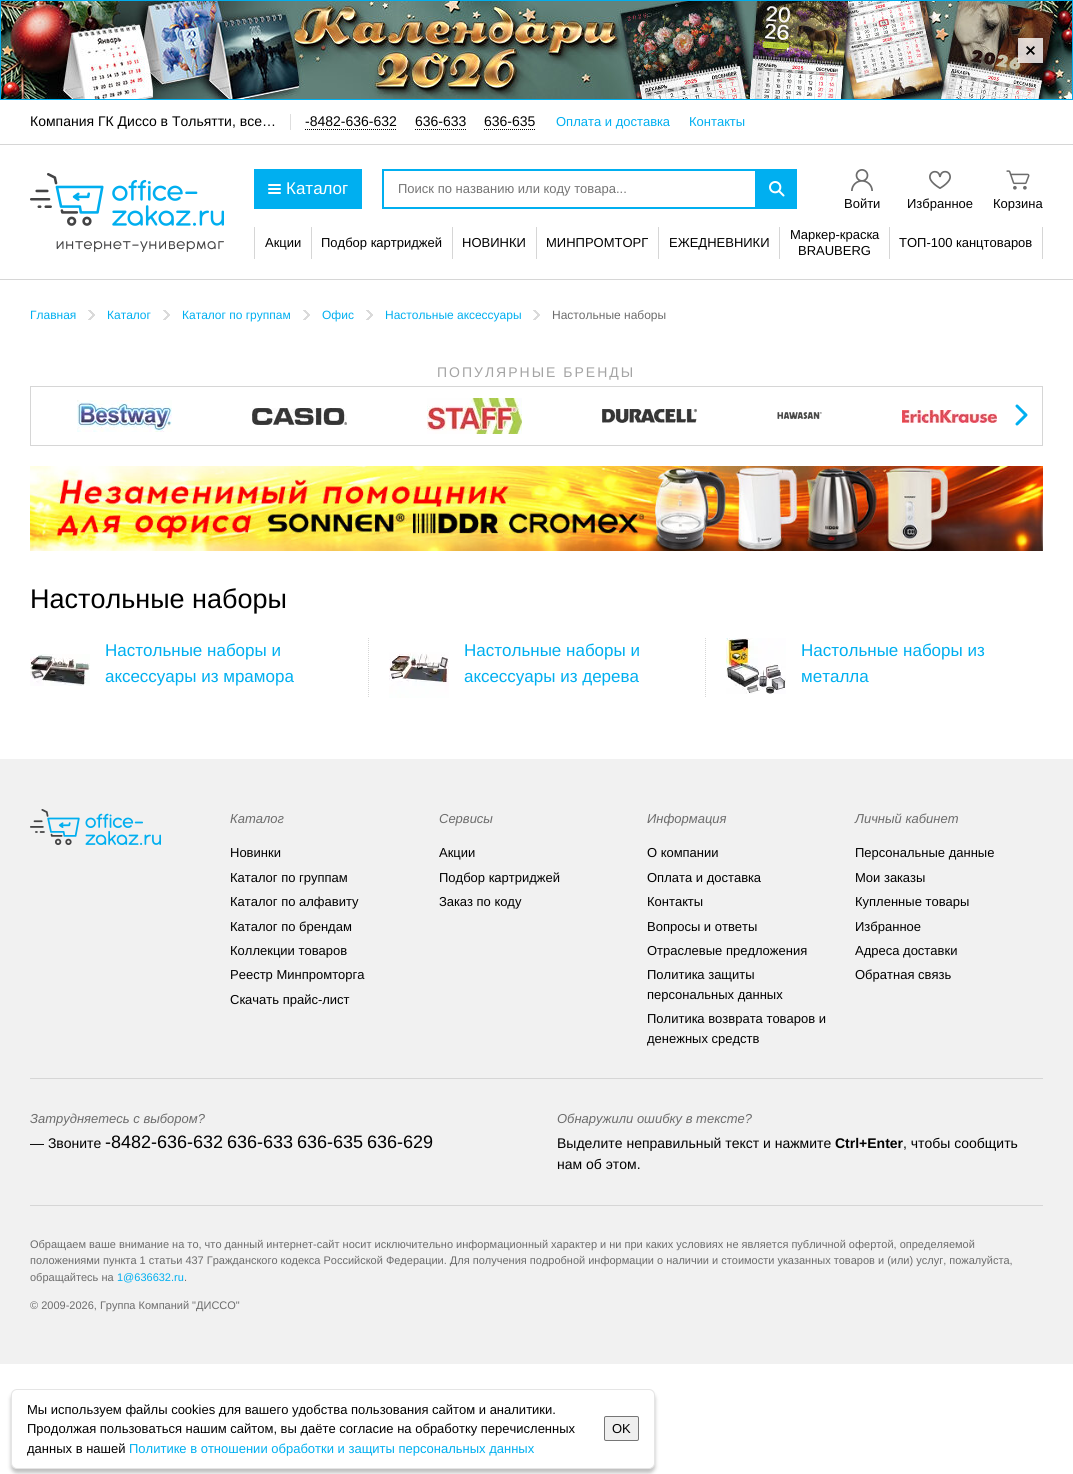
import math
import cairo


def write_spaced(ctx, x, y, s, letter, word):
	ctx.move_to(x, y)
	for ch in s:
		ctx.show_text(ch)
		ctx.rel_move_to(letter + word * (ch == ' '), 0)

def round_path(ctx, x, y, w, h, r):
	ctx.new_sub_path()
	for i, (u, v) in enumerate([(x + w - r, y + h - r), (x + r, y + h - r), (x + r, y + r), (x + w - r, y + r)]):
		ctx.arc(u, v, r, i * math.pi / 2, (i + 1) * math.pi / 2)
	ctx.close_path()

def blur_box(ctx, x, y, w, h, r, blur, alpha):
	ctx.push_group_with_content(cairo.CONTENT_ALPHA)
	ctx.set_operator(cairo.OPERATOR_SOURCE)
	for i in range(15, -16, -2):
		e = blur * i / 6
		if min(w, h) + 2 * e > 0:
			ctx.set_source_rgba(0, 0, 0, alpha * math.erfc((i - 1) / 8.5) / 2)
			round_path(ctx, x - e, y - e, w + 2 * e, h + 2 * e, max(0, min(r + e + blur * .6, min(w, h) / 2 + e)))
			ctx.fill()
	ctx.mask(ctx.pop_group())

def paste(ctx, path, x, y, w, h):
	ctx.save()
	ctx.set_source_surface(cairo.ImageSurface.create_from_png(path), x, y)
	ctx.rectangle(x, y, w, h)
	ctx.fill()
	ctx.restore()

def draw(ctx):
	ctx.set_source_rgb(1, 1, 1)
	ctx.paint()
	paste(ctx, 'media/1.png', 1, 1, 1071, 98)
	ctx.rectangle(0.5, 0.5, 1072, 99)
	ctx.set_source_rgb(0, 0.686, 0.941)
	ctx.set_line_width(1)
	ctx.stroke()
	ctx.set_source_rgba(1, 1, 1, 0.8)
	ctx.rectangle(1018, 38, 25, 25)
	ctx.fill()
	paste(ctx, 'media/2.png', 1026, 46, 9, 9)
	ctx.set_source_rgb(0.839, 0.839, 0.839)
	ctx.rectangle(0, 144, 1073, 1)
	ctx.fill()
	ctx.select_font_face('Liberation Sans')
	ctx.set_font_size(14)
	ctx.set_source_rgb(0, 0, 0)
	ctx.move_to(30, 126)
	ctx.show_text('Компания ГК Диссо в Тольятти, все…')
	ctx.set_source_rgb(0.871, 0.871, 0.871)
	ctx.rectangle(290, 114, 1, 16)
	ctx.fill()
	ctx.set_source_rgb(0, 0, 0)
	ctx.move_to(305, 126)
	ctx.show_text('-8482-636-632')
	ctx.new_path()
	ctx.move_to(305, 129.5)
	ctx.line_to(397, 129.5)
	ctx.set_dash([1, 1])
	ctx.stroke()
	ctx.move_to(415, 126)
	ctx.show_text('636-633')
	ctx.new_path()
	ctx.move_to(415, 129.5)
	ctx.line_to(466, 129.5)
	ctx.stroke()
	ctx.move_to(484, 126)
	ctx.show_text('636-635')
	ctx.new_path()
	ctx.move_to(484, 129.5)
	ctx.line_to(535, 129.5)
	ctx.stroke()
	ctx.set_font_size(13)
	ctx.set_source_rgb(0, 0.686, 0.941)
	ctx.move_to(556, 126)
	ctx.show_text('Оплата и доставка')
	ctx.move_to(689, 126)
	ctx.show_text('Контакты')
	ctx.set_source_rgb(0.839, 0.839, 0.839)
	ctx.rectangle(0, 279, 1073, 1)
	ctx.fill()
	paste(ctx, 'media/3.png', 30, 173, 194, 79)
	ctx.set_source_rgb(0, 0.686, 0.941)
	ctx.rectangle(254, 169, 108, 40)
	ctx.fill()
	ctx.set_source_rgb(1, 1, 1)
	round_path(ctx, 268, 188, 13, 2, 1)
	ctx.fill()
	round_path(ctx, 268, 184, 13, 2, 1)
	ctx.fill()
	round_path(ctx, 268, 192, 13, 2, 1)
	ctx.fill()
	ctx.set_font_size(17)
	ctx.move_to(286, 194)
	ctx.show_text('Каталог')
	ctx.rectangle(383, 170, 413, 38)
	ctx.set_source_rgb(0, 0.686, 0.941)
	ctx.set_line_width(2)
	ctx.set_dash([])
	ctx.stroke()
	ctx.set_font_size(13)
	ctx.set_source_rgb(0.459, 0.459, 0.459)
	ctx.move_to(398, 193)
	ctx.show_text('Поиск по названию или коду товара...')
	ctx.set_source_rgb(0, 0.686, 0.941)
	ctx.rectangle(755, 171, 40, 36)
	ctx.fill()
	paste(ctx, 'media/4.png', 769, 181, 16, 16)
	paste(ctx, 'media/5.png', 851, 169, 22, 22)
	ctx.set_source_rgb(0, 0, 0)
	ctx.move_to(844, 208)
	ctx.show_text('Войти')
	paste(ctx, 'media/6.png', 929, 170, 22, 19)
	ctx.move_to(907, 208)
	ctx.show_text('Избранное')
	paste(ctx, 'media/7.png', 1006, 170, 24, 20)
	ctx.move_to(993, 208)
	ctx.show_text('Корзина')
	ctx.set_source_rgb(0.839, 0.839, 0.839)
	ctx.rectangle(311, 227, 1, 32)
	ctx.fill()
	ctx.rectangle(254, 227, 1, 32)
	ctx.fill()
	ctx.set_source_rgb(0, 0, 0)
	ctx.move_to(265, 247)
	ctx.show_text('Акции')
	ctx.set_source_rgb(0.839, 0.839, 0.839)
	ctx.rectangle(452, 227, 1, 32)
	ctx.fill()
	ctx.set_source_rgb(0, 0, 0)
	ctx.move_to(321, 247)
	ctx.show_text('Подбор картриджей')
	ctx.set_source_rgb(0.839, 0.839, 0.839)
	ctx.rectangle(536, 227, 1, 32)
	ctx.fill()
	ctx.set_source_rgb(0, 0, 0)
	ctx.move_to(462, 247)
	ctx.show_text('НОВИНКИ')
	ctx.set_source_rgb(0.839, 0.839, 0.839)
	ctx.rectangle(658, 227, 1, 32)
	ctx.fill()
	ctx.set_source_rgb(0, 0, 0)
	ctx.move_to(546, 247)
	ctx.show_text('МИНПРОМТОРГ')
	ctx.set_source_rgb(0.839, 0.839, 0.839)
	ctx.rectangle(779, 227, 1, 32)
	ctx.fill()
	ctx.set_source_rgb(0, 0, 0)
	ctx.move_to(669, 247)
	ctx.show_text('ЕЖЕДНЕВНИКИ')
	ctx.set_source_rgb(0.839, 0.839, 0.839)
	ctx.rectangle(889, 227, 1, 32)
	ctx.fill()
	ctx.set_source_rgb(0, 0, 0)
	ctx.move_to(790, 239)
	ctx.show_text('Маркер-краска')
	ctx.move_to(798, 255)
	ctx.show_text('BRAUBERG')
	ctx.set_source_rgb(0.839, 0.839, 0.839)
	ctx.rectangle(1042, 227, 1, 32)
	ctx.fill()
	ctx.set_source_rgb(0, 0, 0)
	ctx.move_to(899, 247)
	ctx.show_text('ТОП-100 канцтоваров')
	ctx.set_font_size(12)
	ctx.set_source_rgb(0, 0.686, 0.941)
	ctx.move_to(30, 319)
	ctx.show_text('Главная')
	paste(ctx, 'media/8.png', 88, 310, 7, 10)
	ctx.move_to(107, 319)
	ctx.show_text('Каталог')
	paste(ctx, 'media/8.png', 163, 310, 7, 10)
	ctx.move_to(182, 319)
	ctx.show_text('Каталог по группам')
	paste(ctx, 'media/8.png', 303, 310, 7, 10)
	ctx.move_to(322, 319)
	ctx.show_text('Офис')
	paste(ctx, 'media/8.png', 366, 310, 7, 10)
	ctx.move_to(385, 319)
	ctx.show_text('Настольные аксессуары')
	paste(ctx, 'media/8.png', 533, 310, 7, 10)
	ctx.set_source_rgb(0.424, 0.424, 0.424)
	ctx.move_to(552, 319)
	ctx.show_text('Настольные наборы')
	ctx.set_font_size(14)
	ctx.set_source_rgb(0.643, 0.643, 0.643)
	write_spaced(ctx, 437, 377, 'ПОПУЛЯРНЫЕ БРЕНДЫ', 2, 0)
	ctx.rectangle(30.5, 386.5, 1012, 59)
	ctx.set_source_rgb(0.839, 0.839, 0.839)
	ctx.set_line_width(1)
	ctx.stroke()
	paste(ctx, 'media/9.png', 77, 400, 95, 32)
	paste(ctx, 'media/10.png', 252, 408, 95, 17)
	paste(ctx, 'media/11.png', 427, 398, 95, 36)
	paste(ctx, 'media/12.png', 602, 409, 95, 14)
	paste(ctx, 'media/13.png', 777, 412, 45, 7)
	paste(ctx, 'media/14.png', 902, 410, 95, 13)
	paste(ctx, 'media/15.png', 1015, 404, 13, 22)
	paste(ctx, 'media/16.png', 30, 466, 1013, 85)
	ctx.set_font_size(27)
	ctx.set_source_rgb(0, 0, 0)
	ctx.move_to(30, 608)
	ctx.show_text('Настольные наборы')
	paste(ctx, 'media/17.png', 30, 654, 60, 32)
	ctx.set_font_size(17)
	ctx.set_source_rgb(0, 0.686, 0.941)
	ctx.move_to(105, 656)
	ctx.show_text('Настольные наборы и')
	ctx.move_to(105, 682)
	ctx.show_text('аксессуары из мрамора')
	ctx.new_path()
	ctx.move_to(368.5, 638)
	ctx.line_to(368.5, 698)
	ctx.set_source_rgb(0.839, 0.839, 0.839)
	ctx.set_dash([1, 1])
	ctx.stroke()
	paste(ctx, 'media/18.png', 389, 652, 60, 46)
	ctx.set_source_rgb(0, 0.686, 0.941)
	ctx.move_to(464, 656)
	ctx.show_text('Настольные наборы и')
	ctx.move_to(464, 682)
	ctx.show_text('аксессуары из дерева')
	ctx.new_path()
	ctx.move_to(705.5, 638)
	ctx.line_to(705.5, 698)
	ctx.set_source_rgb(0.839, 0.839, 0.839)
	ctx.stroke()
	paste(ctx, 'media/19.png', 726, 638, 60, 56)
	ctx.set_source_rgb(0, 0.686, 0.941)
	ctx.move_to(801, 656)
	ctx.show_text('Настольные наборы из')
	ctx.move_to(801, 682)
	ctx.show_text('металла')
	ctx.set_source_rgb(0.945, 0.945, 0.945)
	ctx.rectangle(0, 759, 1073, 605)
	ctx.fill()
	paste(ctx, 'media/20.png', 30, 809, 131, 36)
	ctx.select_font_face('Liberation Sans', cairo.FONT_SLANT_ITALIC)
	ctx.set_font_size(13)
	ctx.set_source_rgb(0.424, 0.424, 0.424)
	ctx.move_to(230, 823)
	ctx.show_text('Каталог')
	ctx.select_font_face('Liberation Sans')
	ctx.set_source_rgb(0, 0, 0)
	for x, y, s in [
		(230, 857, 'Новинки'),
		(230, 882, 'Каталог по группам'),
		(230, 906, 'Каталог по алфавиту'),
		(230, 931, 'Каталог по брендам'),
		(230, 955, 'Коллекции товаров'),
		(230, 979, 'Реестр Минпромторга'),
		(230, 1004, 'Скачать прайс-лист'),
	]:
		ctx.move_to(x, y)
		ctx.show_text(s)
	ctx.select_font_face('Liberation Sans', cairo.FONT_SLANT_ITALIC)
	ctx.set_source_rgb(0.424, 0.424, 0.424)
	ctx.move_to(439, 823)
	ctx.show_text('Сервисы')
	ctx.select_font_face('Liberation Sans')
	ctx.set_source_rgb(0, 0, 0)
	for x, y, s in [
		(439, 857, 'Акции'),
		(439, 882, 'Подбор картриджей'),
		(439, 906, 'Заказ по коду'),
	]:
		ctx.move_to(x, y)
		ctx.show_text(s)
	ctx.select_font_face('Liberation Sans', cairo.FONT_SLANT_ITALIC)
	ctx.set_source_rgb(0.424, 0.424, 0.424)
	ctx.move_to(647, 823)
	ctx.show_text('Информация')
	ctx.select_font_face('Liberation Sans')
	ctx.set_source_rgb(0, 0, 0)
	for x, y, s in [
		(647, 857, 'О компании'),
		(647, 882, 'Оплата и доставка'),
		(647, 906, 'Контакты'),
		(647, 931, 'Вопросы и ответы'),
		(647, 955, 'Отраслевые предложения'),
		(647, 979, 'Политика защиты'),
		(647, 999, 'персональных данных'),
		(647, 1023, 'Политика возврата товаров и'),
		(647, 1043, 'денежных средств'),
	]:
		ctx.move_to(x, y)
		ctx.show_text(s)
	ctx.select_font_face('Liberation Sans', cairo.FONT_SLANT_ITALIC)
	ctx.set_source_rgb(0.424, 0.424, 0.424)
	ctx.move_to(855, 823)
	ctx.show_text('Личный кабинет')
	ctx.select_font_face('Liberation Sans')
	ctx.set_source_rgb(0, 0, 0)
	for x, y, s in [
		(855, 857, 'Персональные данные'),
		(855, 882, 'Мои заказы'),
		(855, 906, 'Купленные товары'),
		(855, 931, 'Избранное'),
		(855, 955, 'Адреса доставки'),
		(855, 979, 'Обратная связь'),
	]:
		ctx.move_to(x, y)
		ctx.show_text(s)
	ctx.set_source_rgb(0.839, 0.839, 0.839)
	ctx.rectangle(30, 1078, 1013, 1)
	ctx.fill()
	ctx.select_font_face('Liberation Sans', cairo.FONT_SLANT_ITALIC)
	ctx.set_source_rgb(0.424, 0.424, 0.424)
	ctx.move_to(30, 1123)
	ctx.show_text('Затрудняетесь с выбором?')
	ctx.select_font_face('Liberation Sans')
	ctx.set_font_size(14)
	ctx.set_source_rgb(0, 0, 0)
	ctx.move_to(30, 1148)
	ctx.show_text('— Звоните')
	ctx.set_font_size(18)
	for x, y, s in [
		(105, 1148, '-8482-636-632'),
		(227, 1148, '636-633'),
		(297, 1148, '636-635'),
		(367, 1148, '636-629'),
	]:
		ctx.move_to(x, y)
		ctx.show_text(s)
	ctx.select_font_face('Liberation Sans', cairo.FONT_SLANT_ITALIC)
	ctx.set_font_size(13)
	ctx.set_source_rgb(0.424, 0.424, 0.424)
	ctx.move_to(557, 1123)
	ctx.show_text('Обнаружили ошибку в тексте?')
	ctx.select_font_face('Liberation Sans')
	ctx.set_font_size(14)
	ctx.set_source_rgb(0, 0, 0)
	ctx.move_to(557, 1148)
	ctx.show_text('Выделите неправильный текст и нажмите')
	ctx.select_font_face('Liberation Sans', cairo.FONT_SLANT_NORMAL, cairo.FONT_WEIGHT_BOLD)
	ctx.move_to(835, 1148)
	ctx.show_text('Ctrl+Enter')
	ctx.select_font_face('Liberation Sans')
	ctx.move_to(903, 1148)
	ctx.show_text(', чтобы сообщить')
	ctx.move_to(557, 1169)
	ctx.show_text('нам об этом.')
	ctx.set_source_rgb(0.839, 0.839, 0.839)
	ctx.rectangle(30, 1205, 1013, 1)
	ctx.fill()
	ctx.set_font_size(11)
	ctx.set_source_rgb(0.424, 0.424, 0.424)
	for x, y, s in [
		(30, 1248, 'Обращаем ваше внимание на то, что данный интернет-сайт носит исключительно информационный характер и ни при каких условиях не является публичной офертой, определяемой'),
		(30, 1264, 'положениями пункта 1 статьи 437 Гражданского кодекса Российской Федерации. Для получения подробной информации о наличии и стоимости указанных товаров и (или) услуг, пожалуйста,'),
		(30, 1281, 'обращайтесь на'),
	]:
		ctx.move_to(x, y)
		ctx.show_text(s)
	ctx.set_source_rgb(0, 0.686, 0.941)
	ctx.move_to(117, 1281)
	ctx.show_text('1@636632.ru')
	ctx.set_source_rgb(0.424, 0.424, 0.424)
	ctx.move_to(184, 1281)
	ctx.show_text('.')
	ctx.move_to(30, 1309)
	ctx.show_text('© 2009-2026, Группа Компаний "ДИССО"')
	ctx.set_source_rgb(0, 0, 0)
	blur_box(ctx, 11, 1393, 644, 80, 6, 2, 0.25)
	ctx.set_source_rgb(1, 1, 1)
	round_path(ctx, 11.5, 1389.5, 643, 79, 5.5)
	ctx.fill_preserve()
	ctx.set_source_rgb(0.898, 0.898, 0.898)
	ctx.set_dash([])
	ctx.stroke()
	ctx.set_font_size(13)
	ctx.set_source_rgb(0, 0, 0)
	for x, y, s in [
		(27, 1414, 'Мы используем файлы cookies для вашего удобства пользования сайтом и аналитики.'),
		(27, 1433, 'Продолжая пользоваться нашим сайтом, вы даёте согласие на обработку перечисленных'),
		(27, 1453, 'данных в нашей'),
	]:
		ctx.move_to(x, y)
		ctx.show_text(s)
	ctx.set_source_rgb(0, 0.686, 0.941)
	ctx.move_to(129, 1453)
	ctx.show_text('Политике в отношении обработки и защиты персональных данных')
	ctx.set_source_rgb(0.937, 0.937, 0.937)
	round_path(ctx, 604.5, 1416.5, 34, 24, 1.5)
	ctx.fill_preserve()
	ctx.set_source_rgb(0.463, 0.463, 0.463)
	ctx.stroke()
	ctx.set_source_rgb(0, 0, 0)
	ctx.move_to(612, 1433)
	ctx.show_text('OK')


surface = cairo.ImageSurface(cairo.FORMAT_RGB24, 1073, 1474)
ctx = cairo.Context(surface)
options = cairo.FontOptions()
options.set_hint_metrics(cairo.HINT_METRICS_OFF)
options.set_hint_style(cairo.HINT_STYLE_NONE)
ctx.set_font_options(options)
ctx.set_miter_limit(4)
draw(ctx)
surface.write_to_png('image.png')
